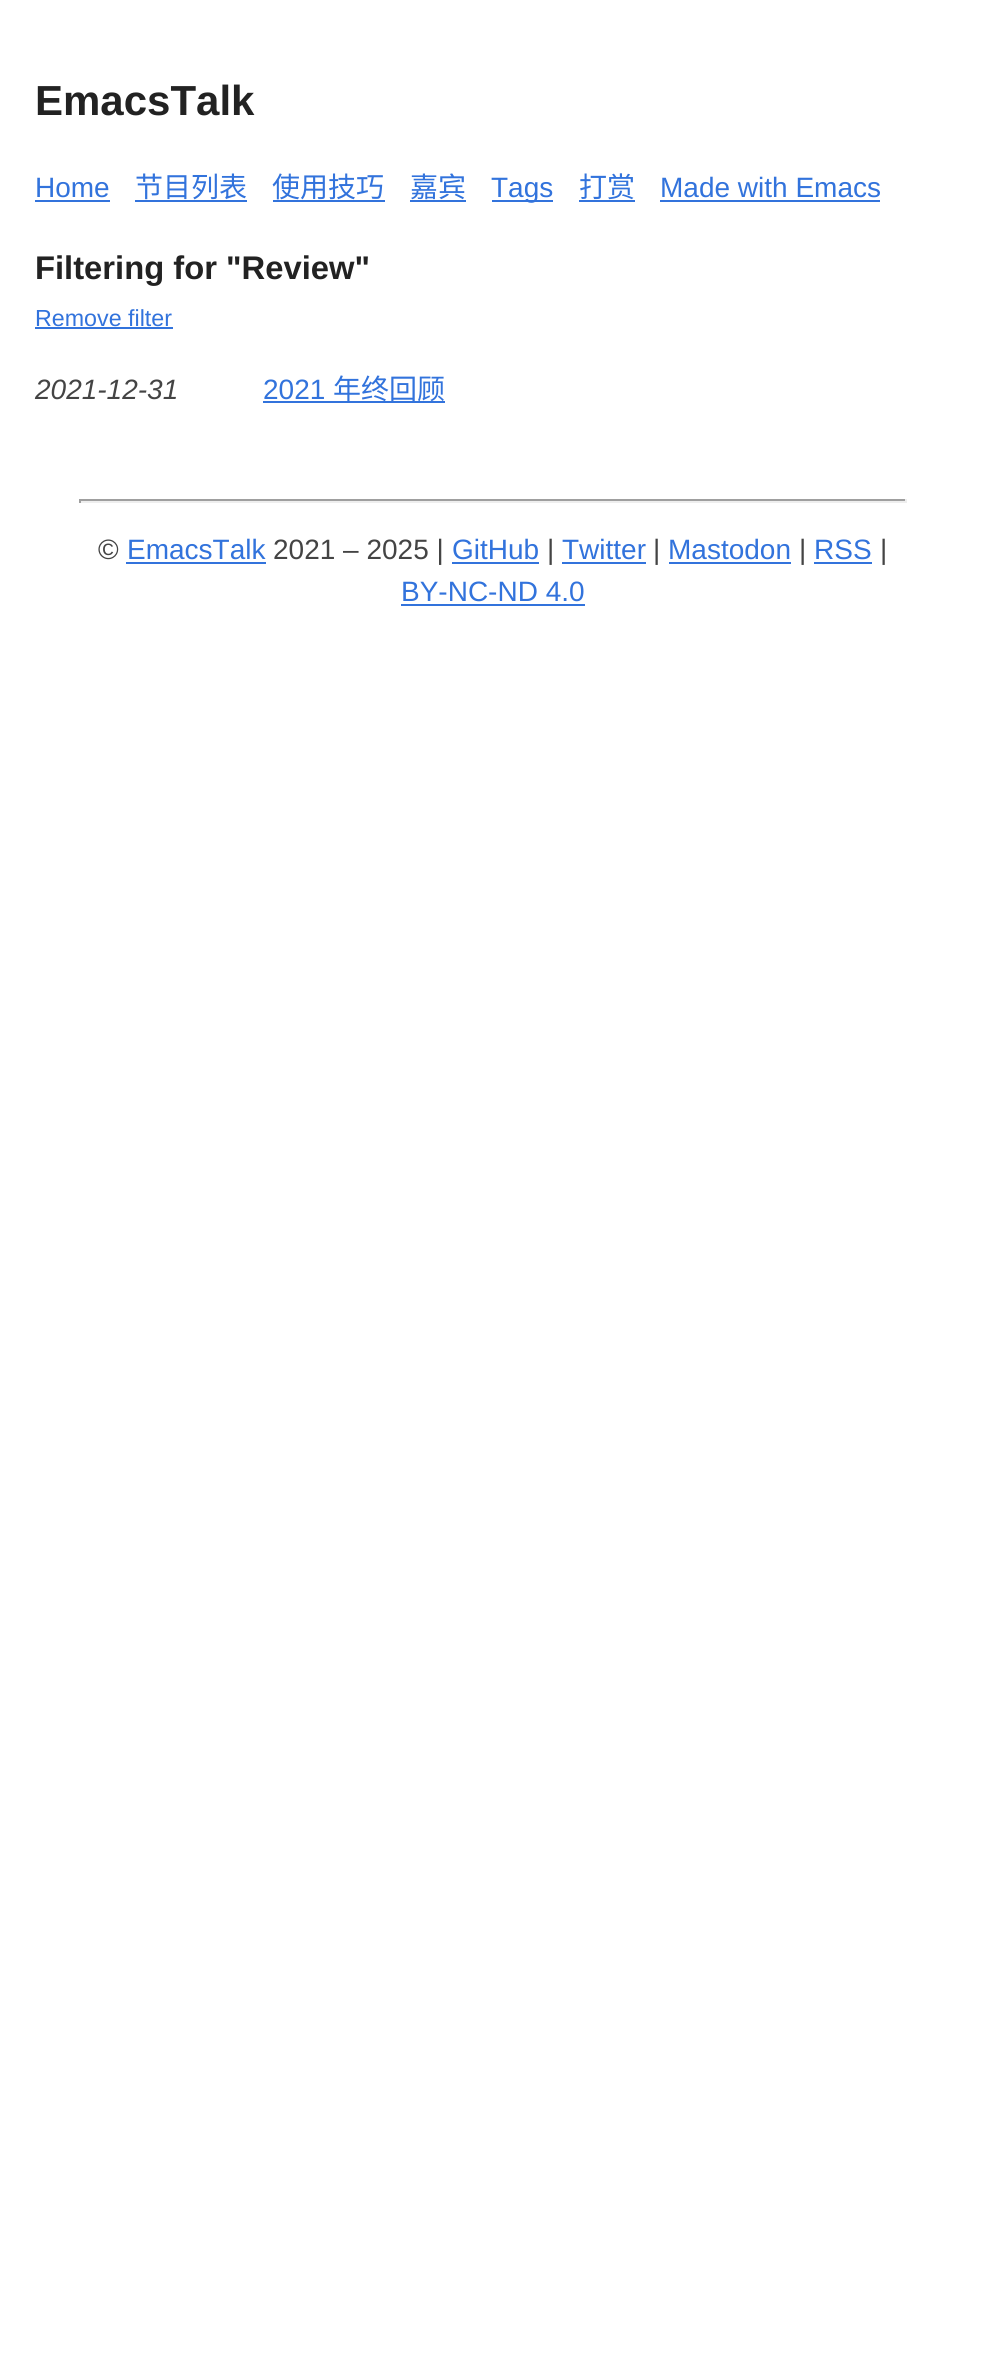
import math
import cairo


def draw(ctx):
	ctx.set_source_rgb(1, 1, 1)
	ctx.paint()
	ctx.select_font_face('Liberation Sans', cairo.FONT_SLANT_NORMAL, cairo.FONT_WEIGHT_BOLD)
	ctx.set_font_size(42)
	ctx.set_source_rgb(0.133, 0.133, 0.133)
	ctx.move_to(35, 115)
	ctx.show_text('EmacsTalk')
	ctx.select_font_face('Liberation Sans')
	ctx.set_font_size(28)
	ctx.set_source_rgb(0.196, 0.451, 0.863)
	ctx.move_to(35, 197)
	ctx.show_text('Home')
	ctx.rectangle(35, 200, 75, 2)
	ctx.fill()
	ctx.select_font_face('Noto Sans CJK SC')
	ctx.move_to(135, 197)
	ctx.show_text('节目列表')
	ctx.rectangle(135, 200, 112, 2)
	ctx.fill()
	ctx.move_to(272, 197)
	ctx.show_text('使用技巧')
	ctx.rectangle(273, 200, 112, 2)
	ctx.fill()
	ctx.move_to(410, 197)
	ctx.show_text('嘉宾')
	ctx.rectangle(410, 200, 56, 2)
	ctx.fill()
	ctx.rectangle(492, 200, 61, 2)
	ctx.fill()
	ctx.select_font_face('Liberation Sans')
	ctx.move_to(491, 197)
	ctx.show_text('Tags')
	ctx.select_font_face('Noto Sans CJK SC')
	ctx.move_to(579, 197)
	ctx.show_text('打赏')
	ctx.rectangle(579, 200, 56, 2)
	ctx.fill()
	ctx.select_font_face('Liberation Sans')
	ctx.move_to(660, 197)
	ctx.show_text('Made with Emacs')
	ctx.rectangle(660, 200, 220, 2)
	ctx.fill()
	ctx.select_font_face('Liberation Sans', cairo.FONT_SLANT_NORMAL, cairo.FONT_WEIGHT_BOLD)
	ctx.set_font_size(32.75)
	ctx.set_source_rgb(0.133, 0.133, 0.133)
	ctx.move_to(35, 279)
	ctx.show_text('Filtering for "Review"')
	ctx.select_font_face('Liberation Sans')
	ctx.set_font_size(23.25)
	ctx.set_source_rgb(0.196, 0.451, 0.863)
	ctx.move_to(35, 326)
	ctx.show_text('Remove filter')
	ctx.rectangle(35, 327, 138, 2)
	ctx.fill()
	ctx.select_font_face('Liberation Sans', cairo.FONT_SLANT_ITALIC)
	ctx.set_font_size(28)
	ctx.set_source_rgb(0.267, 0.267, 0.267)
	ctx.move_to(35, 399)
	ctx.show_text('2021-12-31')
	ctx.select_font_face('Liberation Sans')
	ctx.set_source_rgb(0.196, 0.451, 0.863)
	ctx.move_to(263, 399)
	ctx.show_text('2021')
	ctx.rectangle(263, 401, 182, 2)
	ctx.fill()
	ctx.select_font_face('Noto Sans CJK SC')
	ctx.move_to(333, 399)
	ctx.show_text('年终回顾')
	ctx.set_source_rgb(0.624, 0.624, 0.624)
	ctx.rectangle(79, 499, 828, 2)
	ctx.fill()
	ctx.set_source_rgb(0.933, 0.933, 0.933)
	ctx.rectangle(905, 499, 2, 4)
	ctx.rectangle(79, 501, 828, 2)
	ctx.fill()
	ctx.set_source_rgb(0.624, 0.624, 0.624)
	ctx.rectangle(79, 499, 2, 4)
	ctx.fill()
	ctx.select_font_face('Liberation Sans')
	ctx.set_source_rgb(0.267, 0.267, 0.267)
	ctx.move_to(98, 559)
	ctx.show_text('©')
	ctx.set_source_rgb(0.196, 0.451, 0.863)
	ctx.move_to(127, 559)
	ctx.show_text('EmacsTalk')
	ctx.rectangle(126, 562, 140, 2)
	ctx.fill()
	ctx.set_source_rgb(0.267, 0.267, 0.267)
	ctx.move_to(273, 559)
	ctx.show_text('2021 – 2025 |')
	ctx.set_source_rgb(0.196, 0.451, 0.863)
	ctx.move_to(452, 559)
	ctx.show_text('GitHub')
	ctx.rectangle(452, 562, 87, 2)
	ctx.fill()
	ctx.set_source_rgb(0.267, 0.267, 0.267)
	ctx.move_to(547, 559)
	ctx.show_text('|')
	ctx.set_source_rgb(0.196, 0.451, 0.863)
	ctx.move_to(562, 559)
	ctx.show_text('Twitter')
	ctx.rectangle(562, 562, 84, 2)
	ctx.fill()
	ctx.set_source_rgb(0.267, 0.267, 0.267)
	ctx.move_to(653, 559)
	ctx.show_text('|')
	ctx.set_source_rgb(0.196, 0.451, 0.863)
	ctx.move_to(668, 559)
	ctx.show_text('Mastodon')
	ctx.rectangle(669, 562, 122, 2)
	ctx.fill()
	ctx.set_source_rgb(0.267, 0.267, 0.267)
	ctx.move_to(799, 559)
	ctx.show_text('|')
	ctx.set_source_rgb(0.196, 0.451, 0.863)
	ctx.move_to(814, 559)
	ctx.show_text('RSS')
	ctx.rectangle(814, 562, 58, 2)
	ctx.fill()
	ctx.set_source_rgb(0.267, 0.267, 0.267)
	ctx.move_to(880, 559)
	ctx.show_text('|')
	ctx.set_source_rgb(0.196, 0.451, 0.863)
	ctx.move_to(401, 601)
	ctx.show_text('BY-NC-ND 4.0')
	ctx.rectangle(401, 604, 184, 2)
	ctx.fill()


surface = cairo.ImageSurface(cairo.FORMAT_RGB24, 985, 2380)
ctx = cairo.Context(surface)
options = cairo.FontOptions()
options.set_hint_metrics(cairo.HINT_METRICS_OFF)
options.set_hint_style(cairo.HINT_STYLE_NONE)
ctx.set_font_options(options)
ctx.set_miter_limit(4)
draw(ctx)
surface.write_to_png('image.png')
